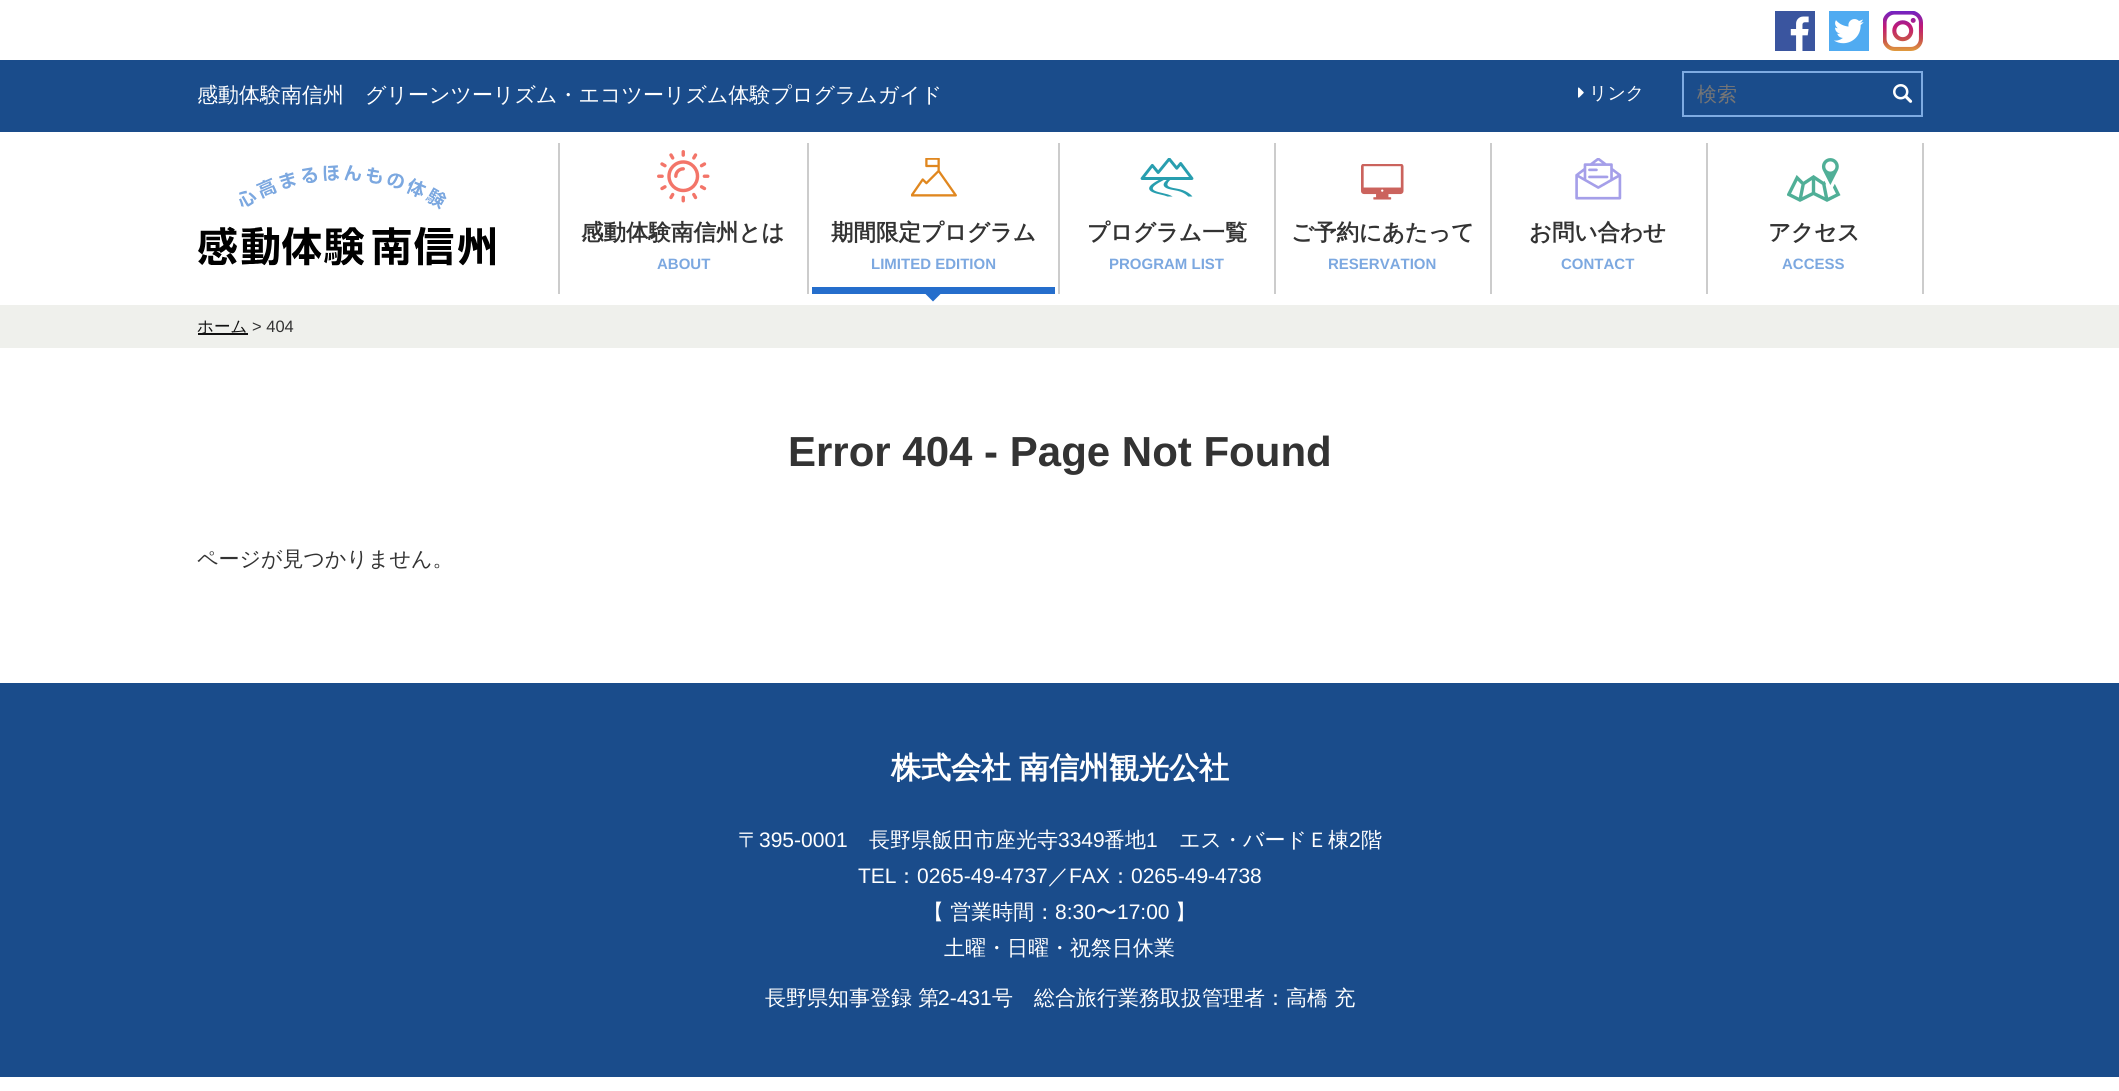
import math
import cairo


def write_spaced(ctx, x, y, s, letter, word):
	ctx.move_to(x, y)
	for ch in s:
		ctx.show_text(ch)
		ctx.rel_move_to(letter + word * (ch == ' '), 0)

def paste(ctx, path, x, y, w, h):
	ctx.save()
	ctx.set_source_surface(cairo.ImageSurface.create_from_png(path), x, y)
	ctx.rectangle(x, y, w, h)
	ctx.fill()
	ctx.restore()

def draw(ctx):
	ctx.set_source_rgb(1, 1, 1)
	ctx.paint()
	paste(ctx, 'media/1.png', 1775, 11, 40, 40)
	paste(ctx, 'media/2.png', 1829, 11, 40, 40)
	paste(ctx, 'media/3.png', 1883, 11, 40, 40)
	ctx.set_source_rgb(0.102, 0.298, 0.545)
	ctx.rectangle(0, 60, 2119, 72)
	ctx.fill()
	ctx.select_font_face('WenQuanYi Zen Hei Medium')
	ctx.set_font_size(21)
	ctx.set_source_rgb(1, 1, 1)
	ctx.move_to(197, 102)
	ctx.show_text('感動体験南信州　グリーンツーリズム・エコツーリズム体験プログラムガイド')
	paste(ctx, 'media/4.png', 1578, 87, 6, 11)
	ctx.set_font_size(18)
	ctx.move_to(1589, 99)
	ctx.show_text('リンク')
	ctx.rectangle(1683, 72, 239, 44)
	ctx.set_source_rgb(0.494, 0.671, 0.886)
	ctx.stroke()
	ctx.set_font_size(20)
	ctx.set_source_rgb(0.459, 0.459, 0.459)
	ctx.move_to(1697, 101)
	ctx.show_text('検索')
	paste(ctx, 'media/5.png', 1893, 84, 20, 19)
	paste(ctx, 'media/6.png', 198, 165, 297, 101)
	ctx.set_source_rgb(0.8, 0.8, 0.8)
	ctx.rectangle(1922, 143, 2, 151)
	ctx.fill()
	paste(ctx, 'media/7.png', 657, 150, 53, 53)
	ctx.rectangle(558, 143, 2, 151)
	ctx.fill()
	ctx.select_font_face('WenQuanYi Zen Hei', cairo.FONT_SLANT_NORMAL, cairo.FONT_WEIGHT_BOLD)
	ctx.set_font_size(22.5)
	ctx.set_source_rgb(0.2, 0.2, 0.2)
	ctx.move_to(581, 240)
	ctx.show_text('感動体験南信州とは')
	ctx.select_font_face('Liberation Sans', cairo.FONT_SLANT_NORMAL, cairo.FONT_WEIGHT_BOLD)
	ctx.set_font_size(15)
	ctx.set_source_rgb(0.486, 0.659, 0.878)
	ctx.move_to(657, 269)
	ctx.show_text('ABOUT')
	paste(ctx, 'media/8.png', 911, 158, 46, 39)
	ctx.set_source_rgb(0.8, 0.8, 0.8)
	ctx.rectangle(807, 143, 2, 151)
	ctx.fill()
	ctx.set_source_rgb(0.145, 0.431, 0.8)
	ctx.rectangle(812, 287, 243, 7)
	ctx.fill()
	ctx.select_font_face('WenQuanYi Zen Hei', cairo.FONT_SLANT_NORMAL, cairo.FONT_WEIGHT_BOLD)
	ctx.set_font_size(22.5)
	ctx.set_source_rgb(0.2, 0.2, 0.2)
	ctx.move_to(831, 240)
	ctx.show_text('期間限定プログラム')
	ctx.select_font_face('Liberation Sans', cairo.FONT_SLANT_NORMAL, cairo.FONT_WEIGHT_BOLD)
	ctx.set_font_size(15)
	ctx.set_source_rgb(0.486, 0.659, 0.878)
	ctx.move_to(871, 269)
	ctx.show_text('LIMITED EDITION')
	ctx.set_source_rgb(0.145, 0.431, 0.8)
	ctx.new_path()
	ctx.move_to(924, 292.5)
	ctx.line_to(942, 292.5)
	ctx.line_to(933, 301.5)
	ctx.close_path()
	ctx.fill()
	paste(ctx, 'media/9.png', 1140, 158, 54, 39)
	ctx.set_source_rgb(0.8, 0.8, 0.8)
	ctx.rectangle(1058, 143, 2, 151)
	ctx.fill()
	ctx.select_font_face('WenQuanYi Zen Hei', cairo.FONT_SLANT_NORMAL, cairo.FONT_WEIGHT_BOLD)
	ctx.set_font_size(22.5)
	ctx.set_source_rgb(0.2, 0.2, 0.2)
	ctx.move_to(1087, 240)
	ctx.show_text('プログラム一覧')
	ctx.select_font_face('Liberation Sans', cairo.FONT_SLANT_NORMAL, cairo.FONT_WEIGHT_BOLD)
	ctx.set_font_size(15)
	ctx.set_source_rgb(0.486, 0.659, 0.878)
	ctx.move_to(1109, 269)
	ctx.show_text('PROGRAM LIST')
	paste(ctx, 'media/10.png', 1361, 164, 43, 36)
	ctx.set_source_rgb(0.8, 0.8, 0.8)
	ctx.rectangle(1274, 143, 2, 151)
	ctx.fill()
	ctx.select_font_face('WenQuanYi Zen Hei', cairo.FONT_SLANT_NORMAL, cairo.FONT_WEIGHT_BOLD)
	ctx.set_font_size(22.5)
	ctx.set_source_rgb(0.2, 0.2, 0.2)
	ctx.move_to(1291, 240)
	ctx.show_text('ご予約にあたって')
	ctx.select_font_face('Liberation Sans', cairo.FONT_SLANT_NORMAL, cairo.FONT_WEIGHT_BOLD)
	ctx.set_font_size(15)
	ctx.set_source_rgb(0.486, 0.659, 0.878)
	ctx.move_to(1328, 269)
	ctx.show_text('RESERVATION')
	paste(ctx, 'media/11.png', 1575, 158, 47, 42)
	ctx.set_source_rgb(0.8, 0.8, 0.8)
	ctx.rectangle(1490, 143, 2, 151)
	ctx.fill()
	ctx.select_font_face('WenQuanYi Zen Hei', cairo.FONT_SLANT_NORMAL, cairo.FONT_WEIGHT_BOLD)
	ctx.set_font_size(22.5)
	ctx.set_source_rgb(0.2, 0.2, 0.2)
	ctx.move_to(1529, 240)
	ctx.show_text('お問い合わせ')
	ctx.select_font_face('Liberation Sans', cairo.FONT_SLANT_NORMAL, cairo.FONT_WEIGHT_BOLD)
	ctx.set_font_size(15)
	ctx.set_source_rgb(0.486, 0.659, 0.878)
	ctx.move_to(1561, 269)
	ctx.show_text('CONTACT')
	paste(ctx, 'media/12.png', 1787, 158, 54, 44)
	ctx.set_source_rgb(0.8, 0.8, 0.8)
	ctx.rectangle(1706, 143, 2, 151)
	ctx.fill()
	ctx.select_font_face('WenQuanYi Zen Hei', cairo.FONT_SLANT_NORMAL, cairo.FONT_WEIGHT_BOLD)
	ctx.set_font_size(22.5)
	ctx.set_source_rgb(0.2, 0.2, 0.2)
	ctx.move_to(1768, 240)
	ctx.show_text('アクセス')
	ctx.select_font_face('Liberation Sans', cairo.FONT_SLANT_NORMAL, cairo.FONT_WEIGHT_BOLD)
	ctx.set_font_size(15)
	ctx.set_source_rgb(0.486, 0.659, 0.878)
	ctx.move_to(1782, 269)
	ctx.show_text('ACCESS')
	ctx.set_source_rgb(0.937, 0.941, 0.922)
	ctx.rectangle(0, 305, 2119, 43)
	ctx.fill()
	ctx.set_source_rgb(0.067, 0.067, 0.067)
	ctx.rectangle(198, 333, 50, 2)
	ctx.fill()
	ctx.select_font_face('WenQuanYi Zen Hei Medium')
	ctx.set_font_size(16.5)
	ctx.move_to(197, 332)
	ctx.show_text('ホーム')
	ctx.select_font_face('Liberation Sans')
	ctx.set_source_rgb(0.2, 0.2, 0.2)
	ctx.move_to(252, 332)
	ctx.show_text('> 404')
	ctx.select_font_face('Liberation Sans', cairo.FONT_SLANT_NORMAL, cairo.FONT_WEIGHT_BOLD)
	ctx.set_font_size(42)
	ctx.move_to(788, 466)
	ctx.show_text('Error 404 - Page Not Found')
	ctx.select_font_face('WenQuanYi Zen Hei Medium')
	ctx.set_font_size(21)
	ctx.move_to(197, 566)
	ctx.show_text('ページが見つかりません。')
	ctx.set_source_rgb(0.102, 0.298, 0.545)
	ctx.rectangle(0, 683, 2119, 394)
	ctx.fill()
	ctx.select_font_face('WenQuanYi Zen Hei', cairo.FONT_SLANT_NORMAL, cairo.FONT_WEIGHT_BOLD)
	ctx.set_font_size(30)
	ctx.set_source_rgb(1, 1, 1)
	write_spaced(ctx, 891, 778, '株式会社 南信州観光公社', 0, -1)
	ctx.select_font_face('WenQuanYi Zen Hei Medium')
	ctx.set_font_size(21)
	ctx.move_to(738, 847)
	ctx.show_text('〒')
	ctx.select_font_face('Liberation Sans')
	ctx.move_to(759, 847)
	ctx.show_text('395-0001')
	ctx.select_font_face('WenQuanYi Zen Hei Medium')
	ctx.move_to(869, 847)
	ctx.show_text('長野県飯田市座光寺')
	ctx.select_font_face('Liberation Sans')
	ctx.move_to(1058, 847)
	ctx.show_text('3349')
	ctx.select_font_face('WenQuanYi Zen Hei Medium')
	ctx.move_to(1104, 847)
	ctx.show_text('番地')
	ctx.select_font_face('Liberation Sans')
	ctx.move_to(1146, 847)
	ctx.show_text('1')
	ctx.select_font_face('WenQuanYi Zen Hei Medium')
	ctx.move_to(1179, 847)
	ctx.show_text('エス・バードＥ棟')
	ctx.select_font_face('Liberation Sans')
	ctx.move_to(1349, 847)
	ctx.show_text('2')
	ctx.select_font_face('WenQuanYi Zen Hei Medium')
	ctx.move_to(1361, 847)
	ctx.show_text('階')
	ctx.select_font_face('Liberation Sans')
	ctx.move_to(858, 883)
	ctx.show_text('TEL')
	ctx.select_font_face('WenQuanYi Zen Hei Medium')
	ctx.move_to(896, 883)
	ctx.show_text('：')
	ctx.select_font_face('Liberation Sans')
	ctx.move_to(917, 883)
	ctx.show_text('0265-49-4737')
	ctx.select_font_face('WenQuanYi Zen Hei Medium')
	ctx.move_to(1048, 883)
	ctx.show_text('／')
	ctx.select_font_face('Liberation Sans')
	ctx.move_to(1069, 883)
	ctx.show_text('FAX')
	ctx.select_font_face('WenQuanYi Zen Hei Medium')
	ctx.move_to(1110, 883)
	ctx.show_text('：')
	ctx.select_font_face('Liberation Sans')
	ctx.move_to(1131, 883)
	ctx.show_text('0265-49-4738')
	ctx.select_font_face('WenQuanYi Zen Hei Medium')
	ctx.move_to(923, 919)
	ctx.show_text('【 営業時間：')
	ctx.select_font_face('Liberation Sans')
	ctx.move_to(1055, 919)
	ctx.show_text('8:30')
	ctx.select_font_face('WenQuanYi Zen Hei Medium')
	ctx.move_to(1096, 919)
	ctx.show_text('〜')
	ctx.select_font_face('Liberation Sans')
	ctx.move_to(1117, 919)
	ctx.show_text('17:00')
	ctx.select_font_face('WenQuanYi Zen Hei Medium')
	for x, y, s in [
		(1175, 919, '】'),
		(944, 955, '土曜・日曜・祝祭日休業'),
		(765, 1005, '長野県知事登録 第'),
	]:
		ctx.move_to(x, y)
		ctx.show_text(s)
	ctx.select_font_face('Liberation Sans')
	ctx.move_to(938, 1005)
	ctx.show_text('2-431')
	ctx.select_font_face('WenQuanYi Zen Hei Medium')
	ctx.move_to(992, 1005)
	ctx.show_text('号　総合旅行業務取扱管理者：高橋 充')


surface = cairo.ImageSurface(cairo.FORMAT_RGB24, 2119, 1091)
ctx = cairo.Context(surface)
options = cairo.FontOptions()
options.set_hint_metrics(cairo.HINT_METRICS_OFF)
options.set_hint_style(cairo.HINT_STYLE_NONE)
ctx.set_font_options(options)
ctx.set_miter_limit(4)
draw(ctx)
surface.write_to_png('image.png')
